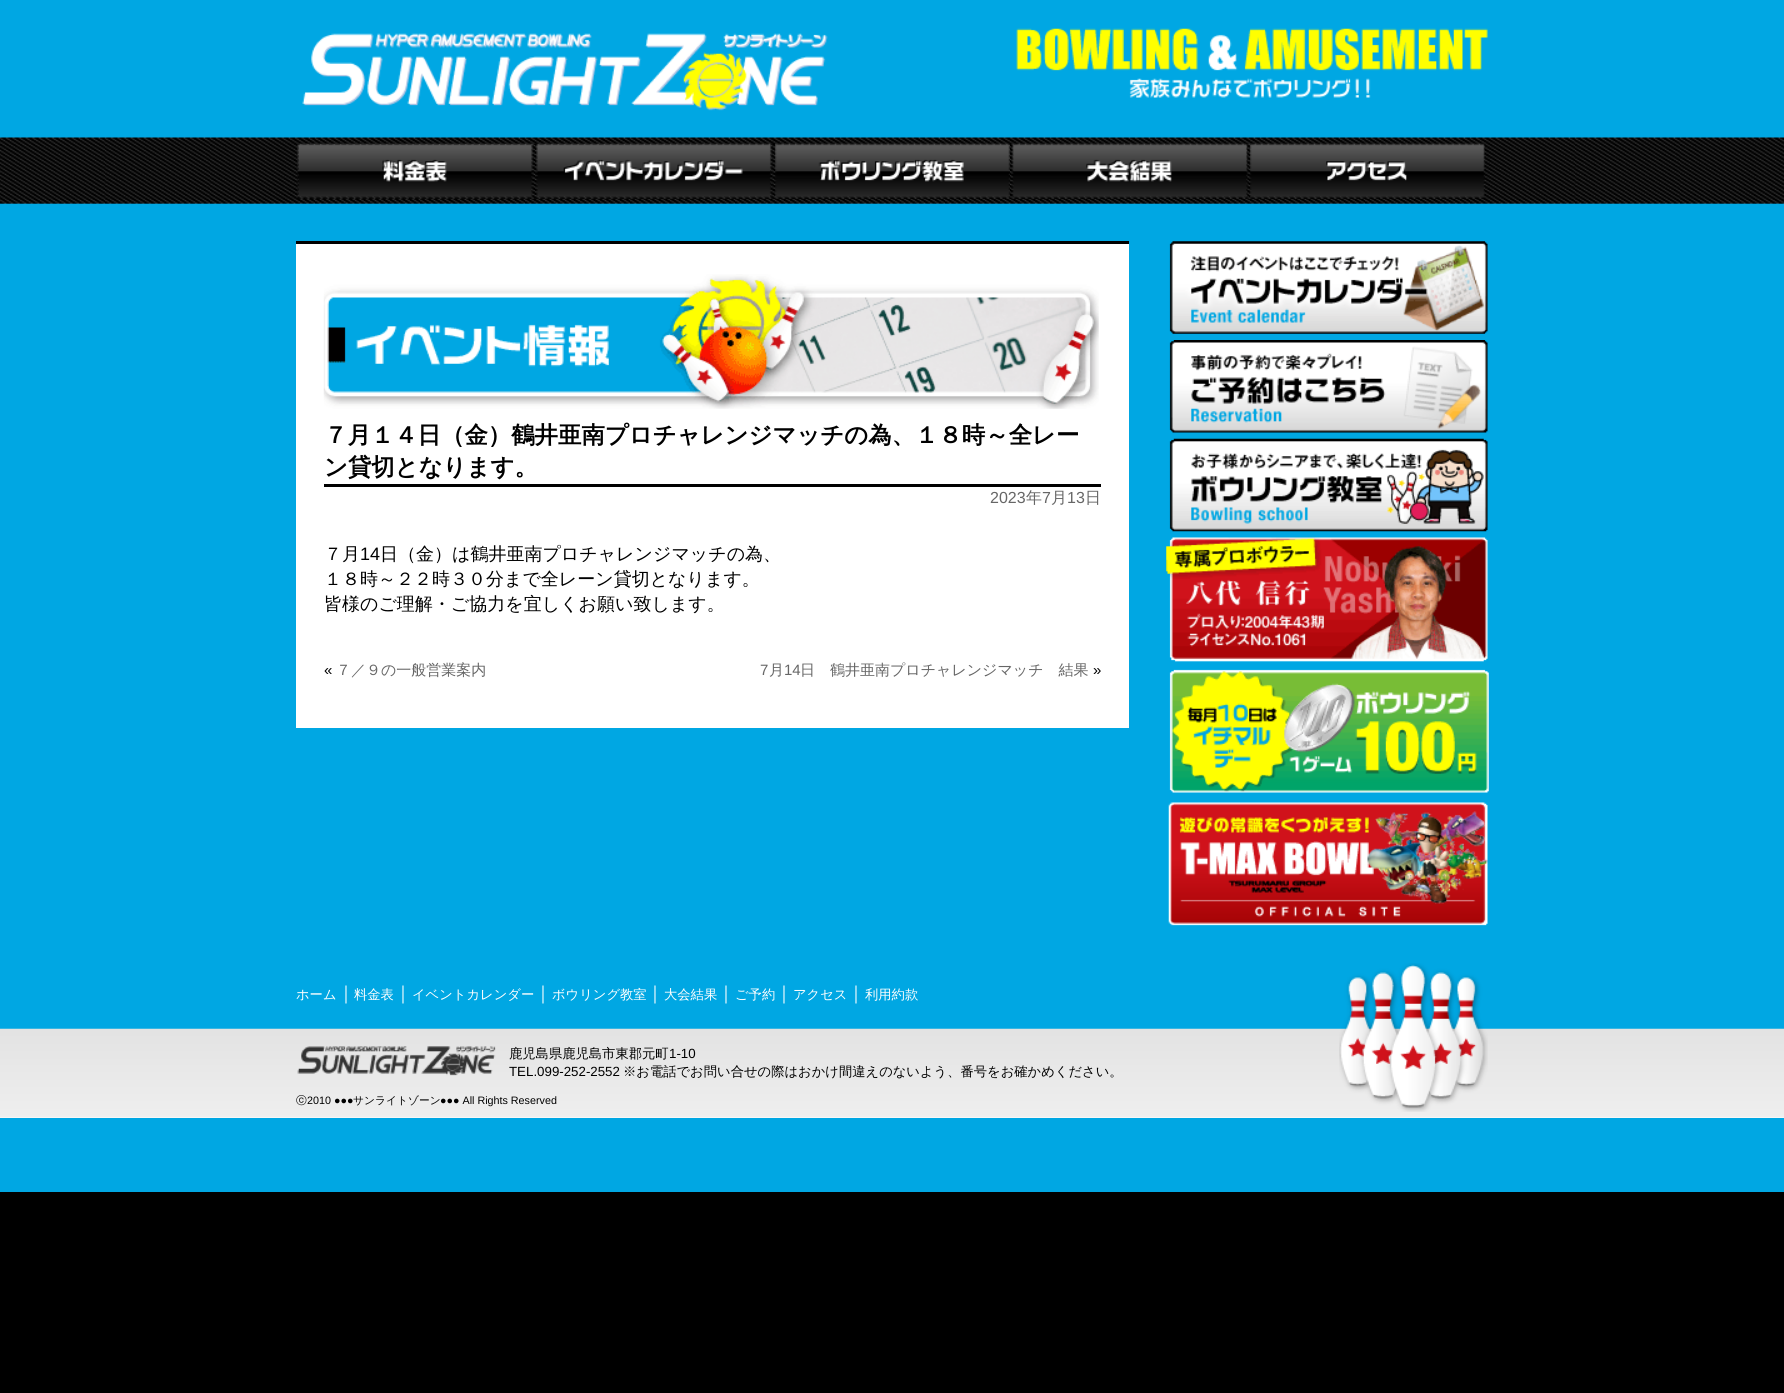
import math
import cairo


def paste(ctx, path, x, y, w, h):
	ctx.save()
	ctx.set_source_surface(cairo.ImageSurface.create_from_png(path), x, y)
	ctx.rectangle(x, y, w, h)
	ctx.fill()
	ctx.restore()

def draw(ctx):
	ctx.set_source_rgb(0, 0, 0)
	ctx.paint()
	ctx.set_source_rgb(0, 0.655, 0.89)
	ctx.rectangle(0, 0, 1784, 1192)
	ctx.fill()
	paste(ctx, 'media/1.png', 302, 33, 526, 78)
	paste(ctx, 'media/2.png', 1016, 28, 472, 70)
	paste(ctx, 'media/3.png', 0, 137, 1784, 67)
	paste(ctx, 'media/4.png', 297, 143, 238, 56)
	paste(ctx, 'media/5.png', 535, 143, 238, 56)
	paste(ctx, 'media/6.png', 772, 143, 238, 56)
	paste(ctx, 'media/7.png', 1010, 143, 238, 56)
	paste(ctx, 'media/8.png', 1247, 143, 238, 56)
	ctx.set_source_rgb(1, 1, 1)
	ctx.rectangle(296, 244, 833, 484)
	ctx.fill()
	ctx.set_source_rgb(0, 0, 0)
	ctx.rectangle(296, 241, 833, 3)
	ctx.fill()
	paste(ctx, 'media/9.png', 323, 274, 776, 135)
	ctx.rectangle(324, 484, 777, 3)
	ctx.fill()
	ctx.select_font_face('WenQuanYi Zen Hei', cairo.FONT_SLANT_NORMAL, cairo.FONT_WEIGHT_BOLD)
	ctx.set_font_size(23.4)
	ctx.move_to(324, 443)
	ctx.show_text('７月１４日（金）鶴井亜南プロチャレンジマッチの為、１８時～全レー')
	ctx.move_to(324, 475)
	ctx.show_text('ン貸切となります。')
	ctx.select_font_face('Liberation Sans')
	ctx.set_font_size(16)
	ctx.set_source_rgb(0.4, 0.4, 0.4)
	ctx.move_to(990, 503)
	ctx.show_text('2023')
	ctx.select_font_face('WenQuanYi Zen Hei Medium')
	ctx.move_to(1026, 503)
	ctx.show_text('年')
	ctx.select_font_face('Liberation Sans')
	ctx.move_to(1042, 503)
	ctx.show_text('7')
	ctx.select_font_face('WenQuanYi Zen Hei Medium')
	ctx.move_to(1051, 503)
	ctx.show_text('月')
	ctx.select_font_face('Liberation Sans')
	ctx.move_to(1067, 503)
	ctx.show_text('13')
	ctx.select_font_face('WenQuanYi Zen Hei Medium')
	ctx.move_to(1085, 503)
	ctx.show_text('日')
	ctx.set_font_size(18)
	ctx.set_source_rgb(0, 0, 0)
	ctx.move_to(324, 560)
	ctx.show_text('７月')
	ctx.select_font_face('Liberation Sans')
	ctx.move_to(360, 560)
	ctx.show_text('14')
	ctx.select_font_face('WenQuanYi Zen Hei Medium')
	for x, y, s in [
		(380, 560, '日（金）は鶴井亜南プロチャレンジマッチの為、'),
		(324, 585, '１８時～２２時３０分まで全レーン貸切となります。'),
		(324, 610, '皆様のご理解・ご協力を宜しくお願い致します。'),
	]:
		ctx.move_to(x, y)
		ctx.show_text(s)
	ctx.select_font_face('Liberation Sans')
	ctx.set_font_size(15)
	ctx.move_to(324, 675)
	ctx.show_text('«')
	ctx.select_font_face('WenQuanYi Zen Hei Medium')
	ctx.set_source_rgb(0.4, 0.4, 0.4)
	ctx.move_to(336, 675)
	ctx.show_text('７／９の一般営業案内')
	ctx.select_font_face('Liberation Sans')
	ctx.move_to(760, 675)
	ctx.show_text('7')
	ctx.select_font_face('WenQuanYi Zen Hei Medium')
	ctx.move_to(769, 675)
	ctx.show_text('月')
	ctx.select_font_face('Liberation Sans')
	ctx.move_to(784, 675)
	ctx.show_text('14')
	ctx.select_font_face('WenQuanYi Zen Hei Medium')
	ctx.move_to(800, 675)
	ctx.show_text('日　鶴井亜南プロチャレンジマッチ　結果')
	ctx.select_font_face('Liberation Sans')
	ctx.set_source_rgb(0, 0, 0)
	ctx.move_to(1093, 675)
	ctx.show_text('»')
	paste(ctx, 'media/10.png', 1169, 241, 319, 93)
	paste(ctx, 'media/11.png', 1169, 340, 319, 93)
	paste(ctx, 'media/12.png', 1169, 438, 319, 94)
	paste(ctx, 'media/13.png', 1166, 537, 322, 125)
	paste(ctx, 'media/14.png', 1169, 669, 320, 124)
	paste(ctx, 'media/15.png', 1168, 802, 320, 124)
	ctx.select_font_face('WenQuanYi Zen Hei Medium')
	ctx.set_font_size(13.3)
	ctx.set_source_rgb(1, 1, 1)
	ctx.move_to(296, 999)
	ctx.show_text('ホーム')
	ctx.set_font_size(18)
	ctx.move_to(337, 999)
	ctx.show_text('｜')
	ctx.set_font_size(13.3)
	ctx.move_to(354, 999)
	ctx.show_text('料金表')
	ctx.set_font_size(18)
	ctx.move_to(394, 999)
	ctx.show_text('｜')
	ctx.set_font_size(13.3)
	ctx.move_to(412, 999)
	ctx.show_text('イベントカレンダー')
	ctx.set_font_size(18)
	ctx.move_to(534, 999)
	ctx.show_text('｜')
	ctx.set_font_size(13.3)
	ctx.move_to(552, 999)
	ctx.show_text('ボウリング教室')
	ctx.set_font_size(18)
	ctx.move_to(646, 999)
	ctx.show_text('｜')
	ctx.set_font_size(13.3)
	ctx.move_to(664, 999)
	ctx.show_text('大会結果')
	ctx.set_font_size(18)
	ctx.move_to(717, 999)
	ctx.show_text('｜')
	ctx.set_font_size(13.3)
	ctx.move_to(735, 999)
	ctx.show_text('ご予約')
	ctx.set_font_size(18)
	ctx.move_to(775, 999)
	ctx.show_text('｜')
	ctx.set_font_size(13.3)
	ctx.move_to(793, 999)
	ctx.show_text('アクセス')
	ctx.set_font_size(18)
	ctx.move_to(847, 999)
	ctx.show_text('｜')
	ctx.set_font_size(13.3)
	ctx.move_to(865, 999)
	ctx.show_text('利用約款')
	ctx.rectangle(0, 1117, 1784, 1)
	ctx.fill()
	paste(ctx, 'media/16.png', 0, 1028, 1784, 90)
	paste(ctx, 'media/17.png', 297, 1046, 199, 30)
	ctx.set_source_rgb(0, 0, 0)
	ctx.move_to(509, 1058)
	ctx.show_text('鹿児島県鹿児島市東郡元町')
	ctx.select_font_face('Liberation Sans')
	ctx.move_to(669, 1058)
	ctx.show_text('1-10')
	ctx.move_to(509, 1076)
	ctx.show_text('TEL.099-252-2552')
	ctx.select_font_face('WenQuanYi Zen Hei Medium')
	ctx.move_to(623, 1076)
	ctx.show_text('※お電話でお問い合せの際はおかけ間違えのないよう、番号をお確かめください。')
	paste(ctx, 'media/18.png', 1339, 963, 149, 149)
	ctx.set_font_size(10.75)
	ctx.move_to(296, 1104)
	ctx.show_text('ⓒ')
	ctx.select_font_face('Liberation Sans')
	ctx.move_to(307, 1104)
	ctx.show_text('2010 ●●●')
	ctx.select_font_face('WenQuanYi Zen Hei Medium')
	ctx.move_to(353, 1104)
	ctx.show_text('サンライトゾーン')
	ctx.select_font_face('Liberation Sans')
	ctx.move_to(440, 1104)
	ctx.show_text('●●● All Rights Reserved')


surface = cairo.ImageSurface(cairo.FORMAT_RGB24, 1784, 1393)
ctx = cairo.Context(surface)
options = cairo.FontOptions()
options.set_hint_metrics(cairo.HINT_METRICS_OFF)
options.set_hint_style(cairo.HINT_STYLE_NONE)
ctx.set_font_options(options)
ctx.set_miter_limit(4)
draw(ctx)
surface.write_to_png('image.png')
